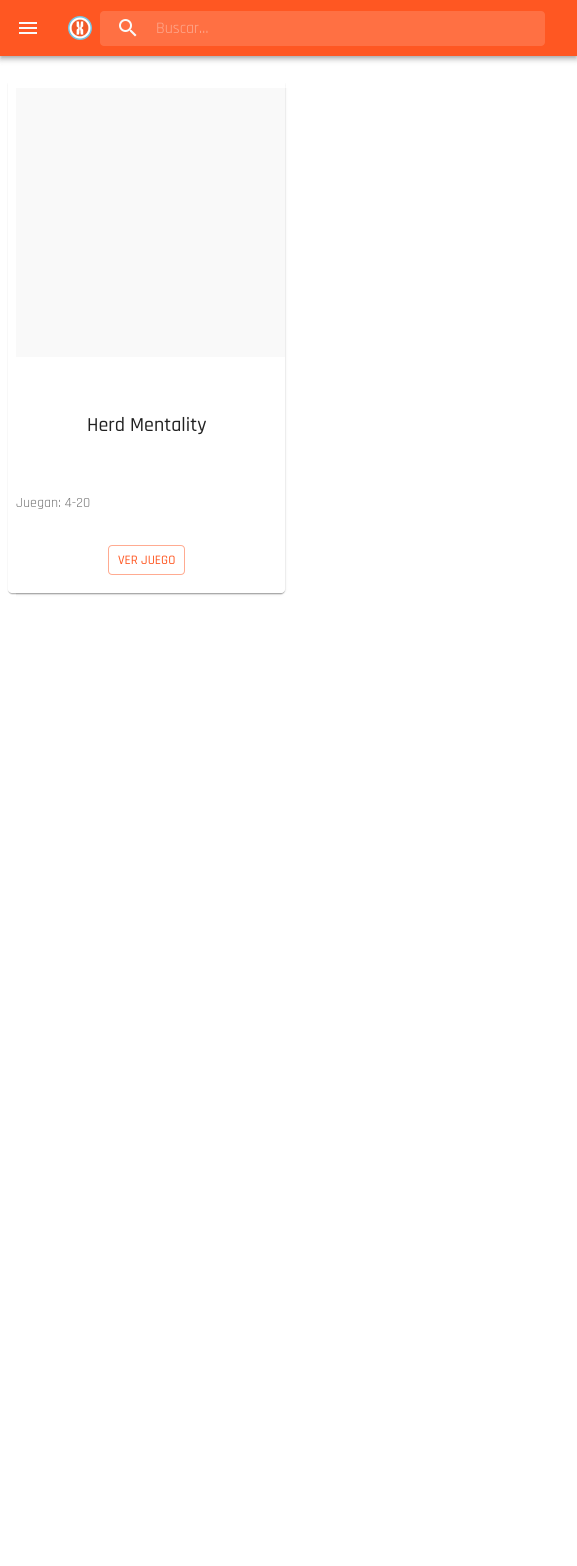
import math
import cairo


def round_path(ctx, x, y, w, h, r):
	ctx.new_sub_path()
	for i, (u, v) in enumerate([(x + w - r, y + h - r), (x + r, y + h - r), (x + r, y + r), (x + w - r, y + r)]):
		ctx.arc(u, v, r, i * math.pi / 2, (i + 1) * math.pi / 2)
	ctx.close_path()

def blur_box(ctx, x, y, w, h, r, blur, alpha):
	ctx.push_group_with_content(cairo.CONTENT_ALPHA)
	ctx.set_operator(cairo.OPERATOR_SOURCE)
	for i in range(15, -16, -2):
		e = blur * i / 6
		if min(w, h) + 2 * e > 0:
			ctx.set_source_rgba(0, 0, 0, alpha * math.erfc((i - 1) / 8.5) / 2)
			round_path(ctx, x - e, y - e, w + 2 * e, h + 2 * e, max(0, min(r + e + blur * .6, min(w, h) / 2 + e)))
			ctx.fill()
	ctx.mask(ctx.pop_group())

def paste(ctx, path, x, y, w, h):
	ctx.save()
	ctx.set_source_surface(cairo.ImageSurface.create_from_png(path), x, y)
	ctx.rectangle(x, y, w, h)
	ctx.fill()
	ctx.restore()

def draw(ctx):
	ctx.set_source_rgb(1, 1, 1)
	ctx.paint()
	ctx.set_source_rgb(0, 0, 0)
	blur_box(ctx, 0, 1, 577, 56, 0, 5, 0.12)
	blur_box(ctx, 0, 4, 577, 56, 0, 2.5, 0.14)
	blur_box(ctx, 1, 3, 575, 54, 0, 2, 0.2)
	ctx.set_source_rgb(1, 0.341, 0.133)
	ctx.rectangle(0, 0, 577, 56)
	ctx.fill()
	paste(ctx, 'media/1.png', 19, 22, 18, 12)
	paste(ctx, 'media/2.png', 68, 16, 24, 24)
	ctx.set_source_rgb(1, 0.439, 0.263)
	round_path(ctx, 100, 11, 445, 35, 4)
	ctx.fill()
	paste(ctx, 'media/3.png', 119, 19, 18, 18)
	ctx.select_font_face('Rajdhani')
	ctx.set_font_size(16)
	ctx.set_source_rgb(0.992, 0.667, 0.565)
	ctx.move_to(156, 33)
	ctx.show_text('Buscar…')
	ctx.save()
	ctx.rectangle(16, 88, 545, 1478)
	ctx.clip()
	ctx.set_source_rgb(0, 0, 0)
	blur_box(ctx, 8, 81, 277, 513, 4, 1.5, 0.12)
	ctx.restore()
	ctx.save()
	ctx.set_fill_rule(cairo.FILL_RULE_EVEN_ODD)
	ctx.new_path()
	ctx.move_to(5, 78)
	ctx.line_to(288, 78)
	ctx.line_to(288, 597)
	ctx.line_to(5, 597)
	ctx.close_path()
	ctx.move_to(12, 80)
	ctx.line_to(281, 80)
	ctx.curve_to(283, 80, 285, 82, 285, 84)
	ctx.line_to(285, 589)
	ctx.curve_to(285, 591, 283, 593, 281, 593)
	ctx.line_to(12, 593)
	ctx.curve_to(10, 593, 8, 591, 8, 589)
	ctx.line_to(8, 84)
	ctx.curve_to(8, 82, 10, 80, 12, 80)
	ctx.close_path()
	ctx.clip()
	ctx.set_source_rgb(0, 0, 0)
	blur_box(ctx, 8, 81, 277, 513, 4, 0.5, 0.14)
	ctx.restore()
	ctx.save()
	ctx.set_fill_rule(cairo.FILL_RULE_EVEN_ODD)
	ctx.new_path()
	ctx.move_to(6, 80)
	ctx.line_to(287, 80)
	ctx.line_to(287, 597)
	ctx.line_to(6, 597)
	ctx.close_path()
	ctx.move_to(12, 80)
	ctx.line_to(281, 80)
	ctx.curve_to(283, 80, 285, 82, 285, 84)
	ctx.line_to(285, 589)
	ctx.curve_to(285, 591, 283, 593, 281, 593)
	ctx.line_to(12, 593)
	ctx.curve_to(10, 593, 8, 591, 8, 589)
	ctx.line_to(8, 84)
	ctx.curve_to(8, 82, 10, 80, 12, 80)
	ctx.close_path()
	ctx.clip()
	ctx.set_source_rgb(0, 0, 0)
	blur_box(ctx, 9, 83, 275, 511, 3, 0.5, 0.2)
	ctx.restore()
	ctx.set_source_rgb(1, 1, 1)
	ctx.new_path()
	ctx.move_to(16, 88)
	ctx.line_to(285, 88)
	ctx.line_to(285, 589)
	ctx.curve_to(285, 591, 283, 593, 281, 593)
	ctx.line_to(16, 593)
	ctx.close_path()
	ctx.fill()
	ctx.set_source_rgb(0.973, 0.973, 0.973)
	ctx.rectangle(16, 88, 269, 269)
	ctx.fill()
	ctx.select_font_face('Rajdhani Medium')
	ctx.set_font_size(20)
	ctx.set_source_rgb(0.129, 0.129, 0.129)
	ctx.move_to(87, 431)
	ctx.show_text('Herd Mentality')
	ctx.select_font_face('Rajdhani')
	ctx.set_font_size(14)
	ctx.set_source_rgb(0.459, 0.459, 0.459)
	ctx.move_to(16, 507)
	ctx.show_text('Juegan: 4-20')
	round_path(ctx, 108.5, 545.5, 76, 29, 3.5)
	ctx.set_source_rgb(1, 0.671, 0.569)
	ctx.set_line_width(1)
	ctx.stroke()
	ctx.select_font_face('Rajdhani Medium')
	ctx.set_font_size(13)
	ctx.set_source_rgb(1, 0.341, 0.133)
	ctx.move_to(118, 564)
	ctx.show_text('VER JUEGO')


surface = cairo.ImageSurface(cairo.FORMAT_RGB24, 577, 1566)
ctx = cairo.Context(surface)
options = cairo.FontOptions()
options.set_hint_metrics(cairo.HINT_METRICS_OFF)
options.set_hint_style(cairo.HINT_STYLE_NONE)
ctx.set_font_options(options)
ctx.set_miter_limit(4)
draw(ctx)
surface.write_to_png('image.png')
